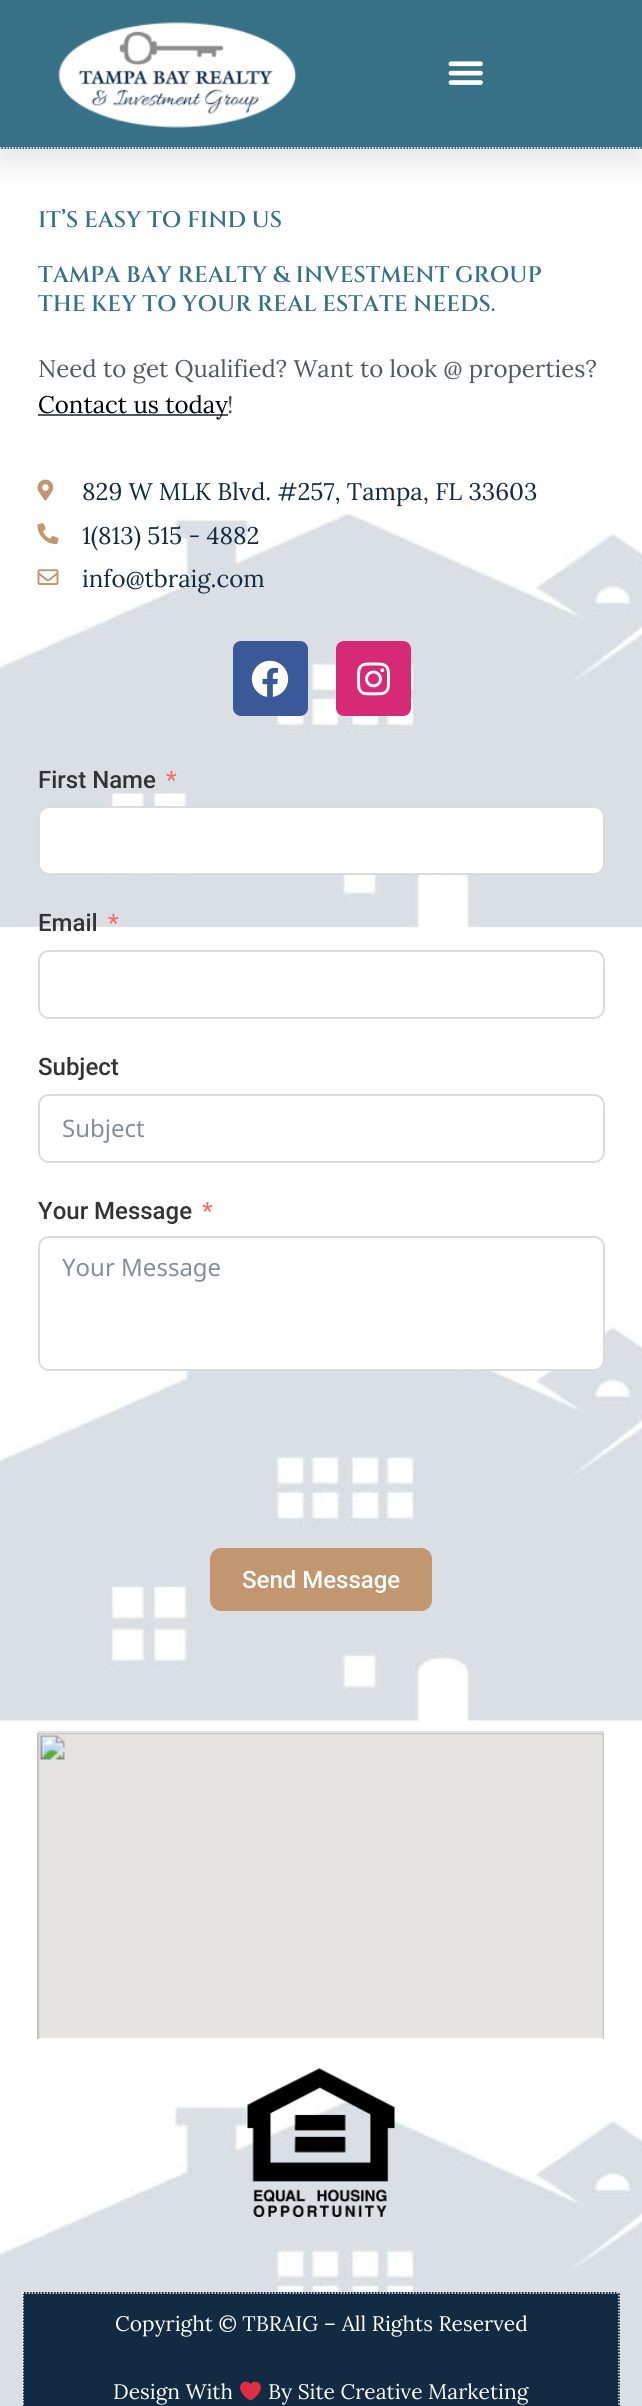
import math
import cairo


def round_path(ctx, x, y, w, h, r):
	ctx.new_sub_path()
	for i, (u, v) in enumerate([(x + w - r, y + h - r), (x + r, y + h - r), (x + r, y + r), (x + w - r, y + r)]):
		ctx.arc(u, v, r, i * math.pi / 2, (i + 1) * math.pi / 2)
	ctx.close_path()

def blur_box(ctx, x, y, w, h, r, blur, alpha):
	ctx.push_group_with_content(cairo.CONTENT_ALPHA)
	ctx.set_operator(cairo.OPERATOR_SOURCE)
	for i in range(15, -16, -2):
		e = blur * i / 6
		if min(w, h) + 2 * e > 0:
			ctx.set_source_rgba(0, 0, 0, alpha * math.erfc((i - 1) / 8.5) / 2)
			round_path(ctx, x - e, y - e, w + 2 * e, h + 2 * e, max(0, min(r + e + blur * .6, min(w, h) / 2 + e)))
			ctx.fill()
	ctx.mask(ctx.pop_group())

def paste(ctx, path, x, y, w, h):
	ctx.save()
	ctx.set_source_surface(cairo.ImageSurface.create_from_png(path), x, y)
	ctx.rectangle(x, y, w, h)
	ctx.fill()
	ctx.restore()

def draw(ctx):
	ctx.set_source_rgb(1, 1, 1)
	ctx.paint()
	paste(ctx, 'media/3.png', 0, 149, 642, 2257)
	ctx.set_source_rgb(0, 0, 0)
	blur_box(ctx, 0, 15, 642, 149, 0, 15, 0.1)
	ctx.set_source_rgb(0.216, 0.443, 0.529)
	ctx.rectangle(0, 0, 642, 149)
	ctx.fill()
	ctx.new_path()
	ctx.move_to(0, 148)
	ctx.line_to(642, 148)
	ctx.set_source_rgb(1, 1, 1)
	ctx.set_line_width(1.5)
	ctx.set_dash([1.5, 1.5])
	ctx.stroke()
	paste(ctx, 'media/1.png', 58, 22, 239, 106)
	paste(ctx, 'media/2.png', 448, 61, 35, 24)
	ctx.select_font_face('Cinzel SemiBold')
	ctx.set_font_size(22.5)
	ctx.set_source_rgb(0.216, 0.443, 0.529)
	for x, y, s in [
		(38, 227, 'IT’S EASY TO FIND US'),
		(38, 282, 'TAMPA BAY REALTY & INVESTMENT GROUP'),
		(38, 311, 'THE KEY TO YOUR REAL ESTATE NEEDS.'),
	]:
		ctx.move_to(x, y)
		ctx.show_text(s)
	ctx.select_font_face('Lora')
	ctx.set_font_size(24)
	ctx.set_source_rgb(0.329, 0.349, 0.373)
	ctx.move_to(38, 377)
	ctx.show_text('Need to get Qualified? Want to look @ properties?')
	ctx.rectangle(38, 414, 190, 2)
	ctx.fill()
	ctx.set_source_rgb(0, 0, 0)
	ctx.move_to(38, 413)
	ctx.show_text('Contact us today')
	ctx.set_source_rgb(0.329, 0.349, 0.373)
	ctx.move_to(227, 413)
	ctx.show_text('!')
	paste(ctx, 'media/4.png', 37, 479, 17, 22)
	ctx.set_source_rgb(0.071, 0.169, 0.259)
	ctx.move_to(82, 500)
	ctx.show_text('829 W MLK Blvd. #257, Tampa, FL 33603')
	paste(ctx, 'media/5.png', 37, 523, 22, 22)
	ctx.move_to(82, 544)
	ctx.show_text('1(813) 515 - 4882')
	paste(ctx, 'media/6.png', 37, 569, 22, 16)
	ctx.move_to(82, 587)
	ctx.show_text('info@tbraig.com')
	ctx.set_source_rgb(0.231, 0.349, 0.596)
	round_path(ctx, 233, 641, 75, 75, 8)
	ctx.fill()
	paste(ctx, 'media/7.png', 251, 660, 38, 37)
	ctx.set_source_rgb(0.839, 0.161, 0.463)
	round_path(ctx, 336, 641, 75, 75, 8)
	ctx.fill()
	paste(ctx, 'media/8.png', 357, 662, 33, 34)
	ctx.select_font_face('Roboto Medium')
	ctx.set_source_rgb(0.2, 0.2, 0.2)
	ctx.move_to(38, 788)
	ctx.show_text('First Name')
	ctx.set_source_rgb(0.961, 0.424, 0.424)
	ctx.move_to(166, 788)
	ctx.show_text('*')
	ctx.set_source_rgb(1, 1, 1)
	round_path(ctx, 39, 807, 565, 67, 10)
	ctx.fill_preserve()
	ctx.set_source_rgb(0.855, 0.859, 0.867)
	ctx.set_line_width(2)
	ctx.set_dash([])
	ctx.stroke()
	ctx.set_source_rgb(0.2, 0.2, 0.2)
	ctx.move_to(38, 931)
	ctx.show_text('Email')
	ctx.set_source_rgb(0.961, 0.424, 0.424)
	ctx.move_to(108, 931)
	ctx.show_text('*')
	round_path(ctx, 39, 951, 565, 67, 10)
	ctx.set_source_rgb(0.855, 0.859, 0.867)
	ctx.stroke()
	ctx.set_source_rgb(0.2, 0.2, 0.2)
	ctx.move_to(38, 1075)
	ctx.show_text('Subject')
	round_path(ctx, 39, 1095, 565, 67, 10)
	ctx.set_source_rgb(0.855, 0.859, 0.867)
	ctx.stroke()
	ctx.select_font_face('Noto Sans')
	ctx.set_source_rgb(0.525, 0.557, 0.588)
	ctx.move_to(62, 1137)
	ctx.show_text('Subject')
	ctx.select_font_face('Roboto Medium')
	ctx.set_source_rgb(0.2, 0.2, 0.2)
	ctx.move_to(38, 1219)
	ctx.show_text('Your Message')
	ctx.set_source_rgb(0.961, 0.424, 0.424)
	ctx.move_to(202, 1219)
	ctx.show_text('*')
	ctx.set_source_rgb(1, 1, 1)
	round_path(ctx, 39, 1237, 565, 133, 10)
	ctx.fill_preserve()
	ctx.set_source_rgb(0.855, 0.859, 0.867)
	ctx.stroke()
	ctx.select_font_face('Noto Sans')
	ctx.set_source_rgb(0.525, 0.557, 0.588)
	ctx.move_to(62, 1276)
	ctx.show_text('Your Message')
	ctx.set_source_rgb(0.761, 0.592, 0.439)
	round_path(ctx, 211, 1549, 220, 61, 10)
	ctx.fill_preserve()
	ctx.stroke()
	ctx.select_font_face('Roboto Medium')
	ctx.set_source_rgb(1, 1, 1)
	ctx.move_to(242, 1588)
	ctx.show_text('Send Message')
	paste(ctx, 'media/9.png', 37, 1731, 568, 308)
	paste(ctx, 'media/10.png', 247, 2068, 148, 149)
	ctx.set_source_rgb(0.071, 0.169, 0.259)
	ctx.rectangle(23, 2292, 597, 114)
	ctx.fill()
	ctx.new_path()
	ctx.move_to(22.5, 2293)
	ctx.line_to(619.5, 2293)
	ctx.set_source_rgb(1, 1, 1)
	ctx.set_line_width(1.5)
	ctx.set_dash([1.5, 1.5])
	ctx.stroke()
	ctx.new_path()
	ctx.move_to(619, 2292)
	ctx.line_to(619, 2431.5)
	ctx.stroke()
	ctx.new_path()
	ctx.move_to(23, 2292)
	ctx.line_to(23, 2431.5)
	ctx.stroke()
	ctx.select_font_face('Lora')
	ctx.set_font_size(21)
	ctx.move_to(115, 2331)
	ctx.show_text('Copyright © TBRAIG – All Rights Reserved')
	ctx.move_to(113, 2399)
	ctx.show_text('Design With')
	paste(ctx, 'media/11.png', 240, 2381, 21, 20)
	ctx.move_to(268, 2399)
	ctx.show_text('By Site Creative Marketing')


surface = cairo.ImageSurface(cairo.FORMAT_RGB24, 642, 2406)
ctx = cairo.Context(surface)
options = cairo.FontOptions()
options.set_hint_metrics(cairo.HINT_METRICS_OFF)
options.set_hint_style(cairo.HINT_STYLE_NONE)
ctx.set_font_options(options)
ctx.set_miter_limit(4)
draw(ctx)
surface.write_to_png('image.png')
